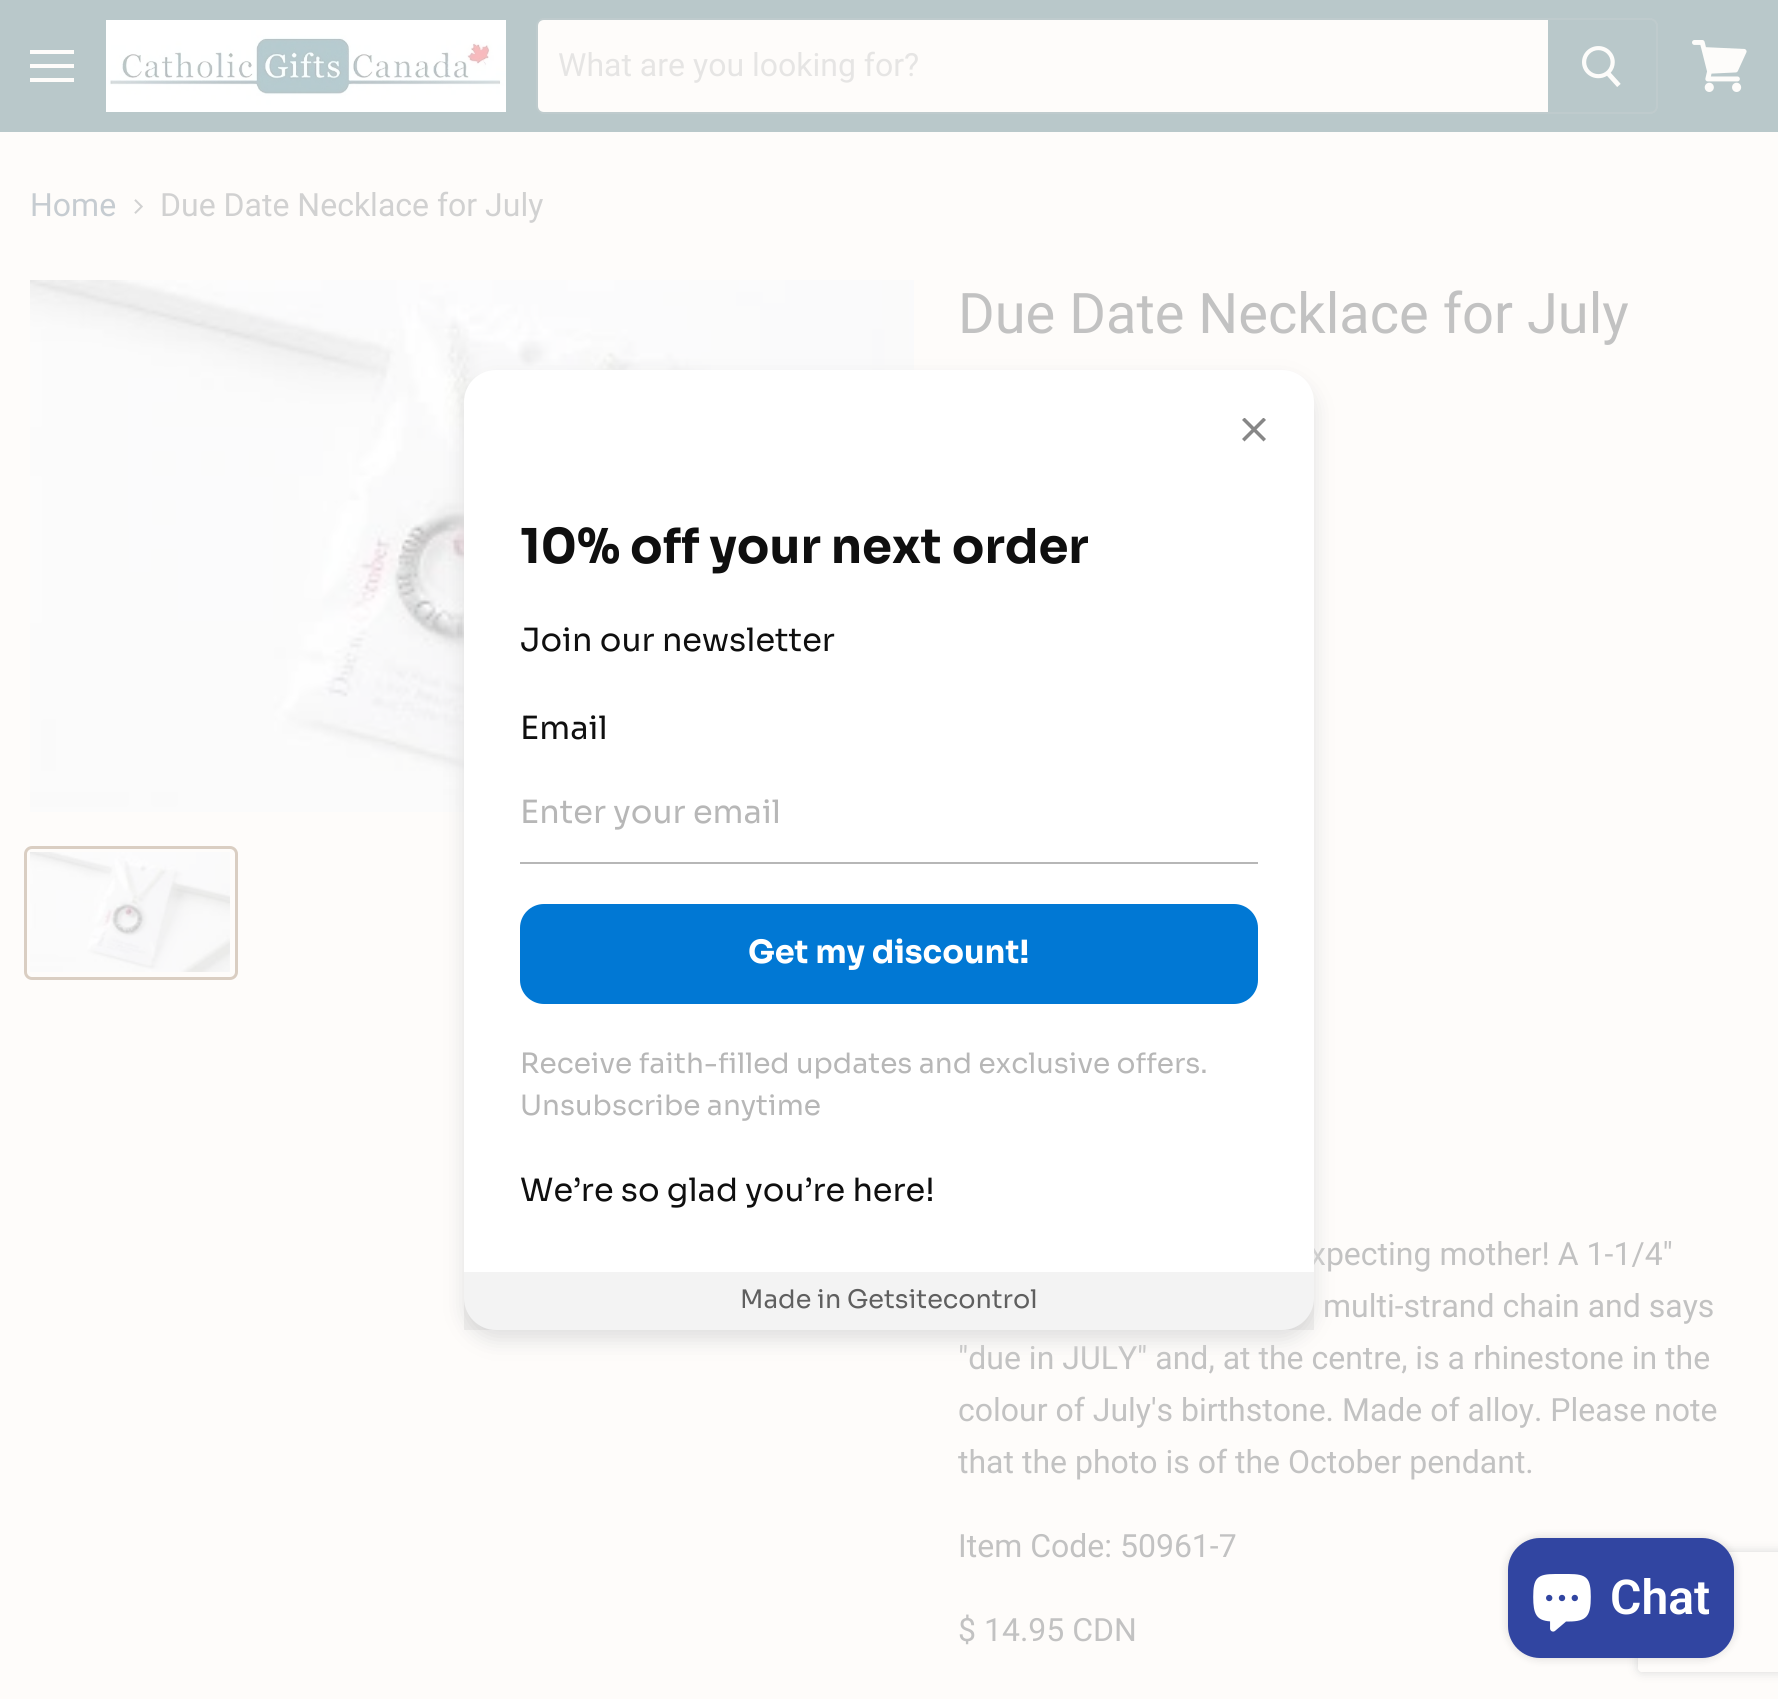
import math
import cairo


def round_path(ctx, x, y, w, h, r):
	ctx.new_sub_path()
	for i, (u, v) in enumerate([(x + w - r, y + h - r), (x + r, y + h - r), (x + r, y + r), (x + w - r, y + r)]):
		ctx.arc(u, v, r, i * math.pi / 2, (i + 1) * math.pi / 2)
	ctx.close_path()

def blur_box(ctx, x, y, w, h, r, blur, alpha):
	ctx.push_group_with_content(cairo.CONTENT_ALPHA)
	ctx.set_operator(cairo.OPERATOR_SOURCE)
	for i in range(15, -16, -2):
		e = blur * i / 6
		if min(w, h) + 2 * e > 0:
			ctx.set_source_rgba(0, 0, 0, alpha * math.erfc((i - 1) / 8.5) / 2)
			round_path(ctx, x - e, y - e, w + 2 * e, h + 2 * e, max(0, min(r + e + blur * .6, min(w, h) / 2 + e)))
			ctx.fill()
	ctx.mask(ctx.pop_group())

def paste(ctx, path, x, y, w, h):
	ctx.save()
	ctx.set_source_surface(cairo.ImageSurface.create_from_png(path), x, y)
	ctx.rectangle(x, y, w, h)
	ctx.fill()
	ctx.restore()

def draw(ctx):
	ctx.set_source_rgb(0.996, 0.988, 0.98)
	ctx.paint()
	ctx.set_source_rgb(0.725, 0.784, 0.792)
	ctx.rectangle(0, 0, 1778, 132)
	ctx.fill()
	ctx.set_source_rgb(0.996, 0.988, 0.98)
	ctx.rectangle(30, 50, 44, 4)
	ctx.rectangle(30, 64, 44, 4)
	ctx.rectangle(30, 78, 44, 4)
	ctx.fill()
	paste(ctx, 'media/1.png', 106, 20, 400, 92)
	round_path(ctx, 537, 19, 1120, 94, 7)
	ctx.set_source_rgba(0.847, 0.843, 0.843, 0.2)
	ctx.stroke()
	ctx.set_source_rgb(0.996, 0.988, 0.98)
	ctx.new_path()
	ctx.move_to(544, 20)
	ctx.line_to(1548, 20)
	ctx.line_to(1548, 112)
	ctx.line_to(544, 112)
	ctx.curve_to(540.5, 112, 538, 109.5, 538, 106)
	ctx.line_to(538, 26)
	ctx.curve_to(538, 22.5, 540.5, 20, 544, 20)
	ctx.close_path()
	ctx.fill()
	ctx.select_font_face('Roboto')
	ctx.set_font_size(32)
	ctx.set_source_rgb(0.902, 0.898, 0.894)
	ctx.move_to(558, 76)
	ctx.show_text('What are you looking for?')
	paste(ctx, 'media/2.png', 1582, 46, 39, 41)
	paste(ctx, 'media/3.png', 1692, 40, 55, 52)
	ctx.set_source_rgb(0.776, 0.8, 0.82)
	ctx.move_to(30, 216)
	ctx.show_text('Home')
	paste(ctx, 'media/4.png', 134, 199, 9, 15)
	ctx.set_source_rgb(0.82, 0.82, 0.82)
	ctx.move_to(160, 216)
	ctx.show_text('Due Date Necklace for July')
	paste(ctx, 'media/5.png', 30, 280, 884, 532)
	round_path(ctx, 25.5, 847.5, 211, 131, 6.5)
	ctx.set_source_rgb(0.855, 0.808, 0.761)
	ctx.set_line_width(3)
	ctx.stroke()
	paste(ctx, 'media/6.png', 30, 852, 200, 120)
	ctx.set_font_size(56)
	ctx.set_source_rgb(0.761, 0.761, 0.761)
	ctx.move_to(958, 333)
	ctx.show_text('Due Date Necklace for July')
	ctx.set_font_size(32)
	for x, y, s in [
		(1310, 1265, 'xpecting mother! A 1-1/4"'),
		(1323, 1317, 'multi-strand chain and says'),
		(958, 1369, '"due in JULY" and, at the centre, is a rhinestone in the'),
		(958, 1421, 'colour of July\'s birthstone. Made of alloy. Please note'),
		(958, 1473, 'that the photo is of the October pendant.'),
		(958, 1557, 'Item Code: 50961-7'),
		(958, 1641, '$ 14.95 CDN'),
	]:
		ctx.move_to(x, y)
		ctx.show_text(s)
	ctx.set_source_rgb(0.878, 0.878, 0.878)
	blur_box(ctx, 464, 380, 850, 960, 32, 10, 1)
	ctx.set_source_rgb(1, 1, 1)
	round_path(ctx, 464, 370, 850, 960, 32)
	ctx.fill()
	ctx.set_source_rgb(0.529, 0.529, 0.529)
	ctx.new_path()
	ctx.move_to(1245, 418)
	ctx.line_to(1244, 418)
	ctx.line_to(1242, 420)
	ctx.line_to(1251.5, 429.5)
	ctx.line_to(1242, 439)
	ctx.line_to(1244.5, 441.5)
	ctx.line_to(1254, 432)
	ctx.line_to(1263.5, 441.5)
	ctx.line_to(1266, 439)
	ctx.line_to(1256.5, 429.5)
	ctx.line_to(1266, 420)
	ctx.line_to(1264, 418)
	ctx.line_to(1263, 418)
	ctx.line_to(1254, 427)
	ctx.close_path()
	ctx.fill()
	ctx.select_font_face('Sora', cairo.FONT_SLANT_NORMAL, cairo.FONT_WEIGHT_BOLD)
	ctx.set_font_size(48)
	ctx.set_source_rgb(0.059, 0.059, 0.059)
	ctx.move_to(520, 563)
	ctx.show_text('10% off your next order')
	ctx.select_font_face('Sora')
	ctx.set_font_size(32)
	ctx.move_to(520, 651)
	ctx.show_text('Join our newsletter')
	ctx.move_to(520, 739)
	ctx.show_text('Email')
	ctx.set_source_rgb(0.718, 0.718, 0.718)
	ctx.rectangle(520, 862, 738, 2)
	ctx.fill()
	ctx.move_to(520, 823)
	ctx.show_text('Enter your email')
	ctx.set_source_rgb(0.004, 0.471, 0.831)
	round_path(ctx, 520, 904, 738, 100, 24)
	ctx.fill()
	ctx.select_font_face('Sora', cairo.FONT_SLANT_NORMAL, cairo.FONT_WEIGHT_BOLD)
	ctx.set_source_rgb(1, 1, 1)
	ctx.move_to(748, 963)
	ctx.show_text('Get my discount!')
	ctx.select_font_face('Sora')
	ctx.set_font_size(28)
	ctx.set_source_rgb(0.718, 0.718, 0.718)
	ctx.move_to(520, 1073)
	ctx.show_text('Receive faith-filled updates and exclusive offers.')
	ctx.move_to(520, 1115)
	ctx.show_text('Unsubscribe anytime')
	ctx.set_font_size(32)
	ctx.set_source_rgb(0.059, 0.059, 0.059)
	ctx.move_to(520, 1201)
	ctx.show_text('We’re so glad you’re here!')
	ctx.set_source_rgba(0, 0, 0, 0.05)
	ctx.rectangle(464, 1272, 850, 58)
	ctx.fill()
	ctx.set_font_size(25.5)
	ctx.set_source_rgb(0.373, 0.373, 0.373)
	ctx.move_to(740, 1308)
	ctx.show_text('Made in Getsitecontrol')
	ctx.save()
	ctx.set_fill_rule(cairo.FILL_RULE_EVEN_ODD)
	ctx.new_path()
	ctx.move_to(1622, 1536)
	ctx.line_to(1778, 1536)
	ctx.line_to(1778, 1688)
	ctx.line_to(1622, 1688)
	ctx.close_path()
	ctx.move_to(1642, 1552)
	ctx.line_to(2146, 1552)
	ctx.curve_to(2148, 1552, 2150, 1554, 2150, 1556)
	ctx.line_to(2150, 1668)
	ctx.curve_to(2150, 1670, 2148, 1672, 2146, 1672)
	ctx.line_to(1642, 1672)
	ctx.curve_to(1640, 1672, 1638, 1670, 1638, 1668)
	ctx.line_to(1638, 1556)
	ctx.curve_to(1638, 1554, 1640, 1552, 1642, 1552)
	ctx.close_path()
	ctx.clip()
	ctx.set_source_rgb(0.851, 0.851, 0.851)
	blur_box(ctx, 1638, 1552, 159, 120, 4, 5, 1)
	ctx.restore()
	ctx.set_source_rgb(0, 0, 0)
	blur_box(ctx, 1508, 1538, 226, 120, 32, 5, 0.15)
	ctx.set_source_rgb(0.192, 0.271, 0.631)
	round_path(ctx, 1508, 1538, 226, 120, 32)
	ctx.fill()
	paste(ctx, 'media/7.png', 1533, 1574, 58, 58)
	ctx.select_font_face('Roboto SemiBold')
	ctx.set_font_size(48)
	ctx.set_source_rgb(1, 1, 1)
	ctx.move_to(1610, 1614)
	ctx.show_text('Chat')


surface = cairo.ImageSurface(cairo.FORMAT_RGB24, 1778, 1699)
ctx = cairo.Context(surface)
options = cairo.FontOptions()
options.set_hint_metrics(cairo.HINT_METRICS_OFF)
options.set_hint_style(cairo.HINT_STYLE_NONE)
ctx.set_font_options(options)
ctx.set_miter_limit(4)
draw(ctx)
surface.write_to_png('image.png')
